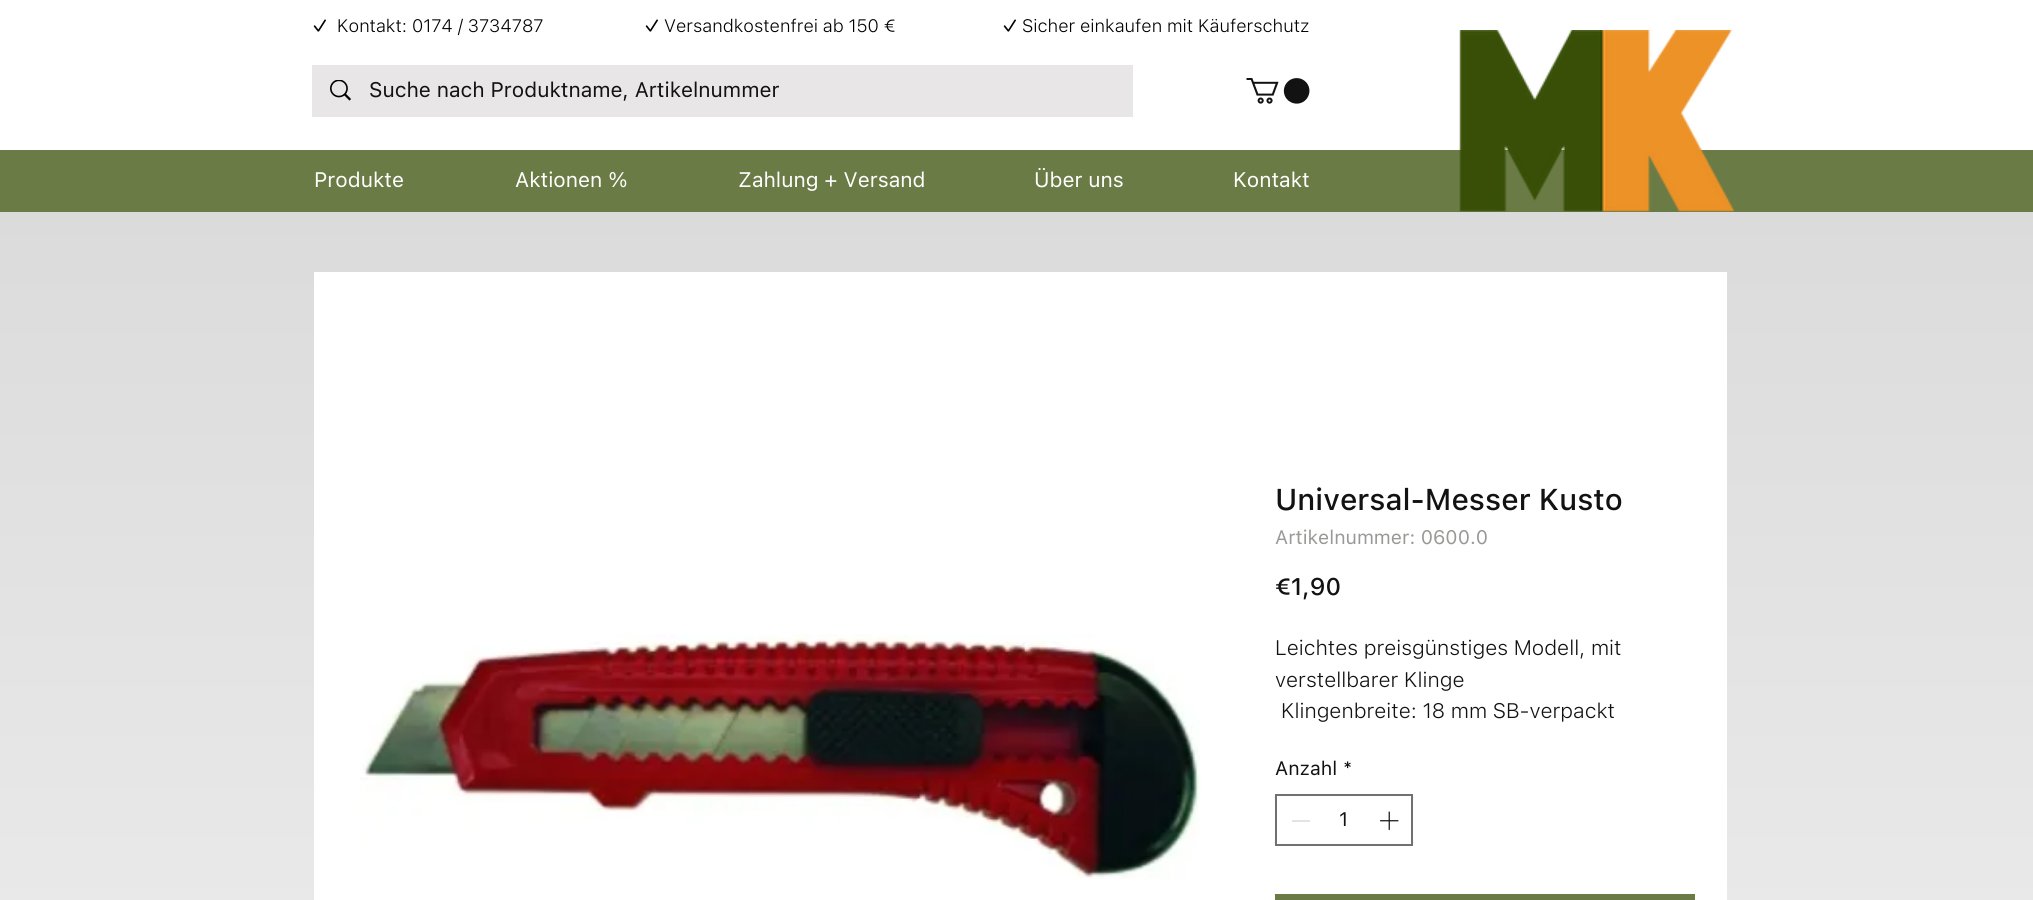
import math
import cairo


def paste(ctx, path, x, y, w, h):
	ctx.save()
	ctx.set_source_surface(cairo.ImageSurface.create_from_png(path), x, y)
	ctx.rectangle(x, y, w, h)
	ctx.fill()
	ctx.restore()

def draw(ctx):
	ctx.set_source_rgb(1, 1, 1)
	ctx.paint()
	ctx.select_font_face('SF Pro Text', cairo.FONT_SLANT_NORMAL, cairo.FONT_WEIGHT_BOLD)
	ctx.set_font_size(18)
	ctx.set_source_rgb(0, 0, 0)
	ctx.move_to(312, 32)
	ctx.show_text('✓')
	ctx.select_font_face('SF Pro Text Light')
	ctx.move_to(337, 32)
	ctx.show_text('Kontakt: 0174 / 3734787')
	ctx.select_font_face('SF Pro Text', cairo.FONT_SLANT_NORMAL, cairo.FONT_WEIGHT_BOLD)
	ctx.move_to(644, 32)
	ctx.show_text('✓')
	ctx.select_font_face('SF Pro Text Light')
	ctx.move_to(664, 32)
	ctx.show_text('Versandkostenfrei ab 150 €')
	ctx.select_font_face('SF Pro Text', cairo.FONT_SLANT_NORMAL, cairo.FONT_WEIGHT_BOLD)
	ctx.move_to(1002, 32)
	ctx.show_text('✓')
	ctx.select_font_face('SF Pro Text Light')
	ctx.move_to(1022, 32)
	ctx.show_text('Sicher einkaufen mit Käuferschutz')
	ctx.set_source_rgb(0.91, 0.902, 0.902)
	ctx.rectangle(312, 65, 821, 52)
	ctx.fill()
	paste(ctx, 'media/1.png', 330, 80, 21, 21)
	ctx.select_font_face('SF Pro Text')
	ctx.set_font_size(21)
	ctx.set_source_rgb(0.071, 0.071, 0.071)
	ctx.move_to(369, 97)
	ctx.show_text('Suche nach Produktname, Artikelnummer')
	paste(ctx, 'media/2.png', 1246, 78, 64, 26)
	ctx.set_source_rgb(0.42, 0.482, 0.271)
	ctx.rectangle(0, 150, 2033, 62)
	ctx.fill()
	paste(ctx, 'media/3.png', 1459, 30, 275, 182)
	ctx.set_source_rgb(1, 1, 1)
	for x, y, s in [
		(314, 187, 'Produkte'),
		(515, 187, 'Aktionen %'),
		(738, 187, 'Zahlung + Versand'),
		(1034, 187, 'Über uns'),
		(1233, 187, 'Kontakt'),
	]:
		ctx.move_to(x, y)
		ctx.show_text(s)
	gradient = cairo.LinearGradient(1017, 211, 1017, 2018)
	gradient.add_color_stop_rgba(0, 0.859, 0.859, 0.859, 1)
	gradient.add_color_stop_rgba(1, 1, 1, 1, 1)
	ctx.set_source(gradient)
	ctx.rectangle(0, 212, 2033, 688)
	ctx.fill()
	ctx.set_source_rgb(1, 1, 1)
	ctx.rectangle(314, 272, 1413, 628)
	ctx.fill()
	paste(ctx, 'media/4.png', 360, 634, 841, 245)
	ctx.select_font_face('SF Pro Text Medium')
	ctx.set_font_size(30)
	ctx.set_source_rgb(0.071, 0.071, 0.071)
	ctx.move_to(1275, 510)
	ctx.show_text('Universal-Messer Kusto')
	ctx.select_font_face('SF Pro Text')
	ctx.set_font_size(19.5)
	ctx.set_source_rgb(0.6, 0.6, 0.592)
	ctx.move_to(1275, 544)
	ctx.show_text('Artikelnummer: 0600.0')
	ctx.select_font_face('SF Pro Text Medium')
	ctx.set_font_size(24)
	ctx.set_source_rgb(0.071, 0.071, 0.071)
	ctx.move_to(1275, 595)
	ctx.show_text('€1,90')
	ctx.select_font_face('SF Pro Text Light')
	ctx.set_font_size(21)
	for x, y, s in [
		(1275, 655, 'Leichtes preisgünstiges Modell, mit'),
		(1275, 687, 'verstellbarer Klinge'),
		(1281, 718, 'Klingenbreite: 18 mm SB-verpackt'),
	]:
		ctx.move_to(x, y)
		ctx.show_text(s)
	ctx.select_font_face('SF Pro Text')
	ctx.set_font_size(19.5)
	ctx.move_to(1275, 775)
	ctx.show_text('Anzahl')
	ctx.move_to(1343, 775)
	ctx.show_text('*')
	ctx.rectangle(1276, 795, 136, 50)
	ctx.set_source_rgb(0.443, 0.443, 0.443)
	ctx.stroke()
	ctx.set_source_rgb(0.89, 0.89, 0.89)
	ctx.rectangle(1292, 820, 18, 2)
	ctx.fill()
	ctx.set_source_rgb(0.071, 0.071, 0.071)
	ctx.move_to(1339, 826)
	ctx.show_text('1')
	paste(ctx, 'media/5.png', 1380, 811, 19, 19)
	ctx.set_source_rgb(0.42, 0.482, 0.271)
	ctx.rectangle(1275, 894, 420, 6)
	ctx.fill()


surface = cairo.ImageSurface(cairo.FORMAT_RGB24, 2033, 900)
ctx = cairo.Context(surface)
options = cairo.FontOptions()
options.set_hint_metrics(cairo.HINT_METRICS_OFF)
options.set_hint_style(cairo.HINT_STYLE_NONE)
ctx.set_font_options(options)
ctx.set_miter_limit(4)
draw(ctx)
surface.write_to_png('image.png')
